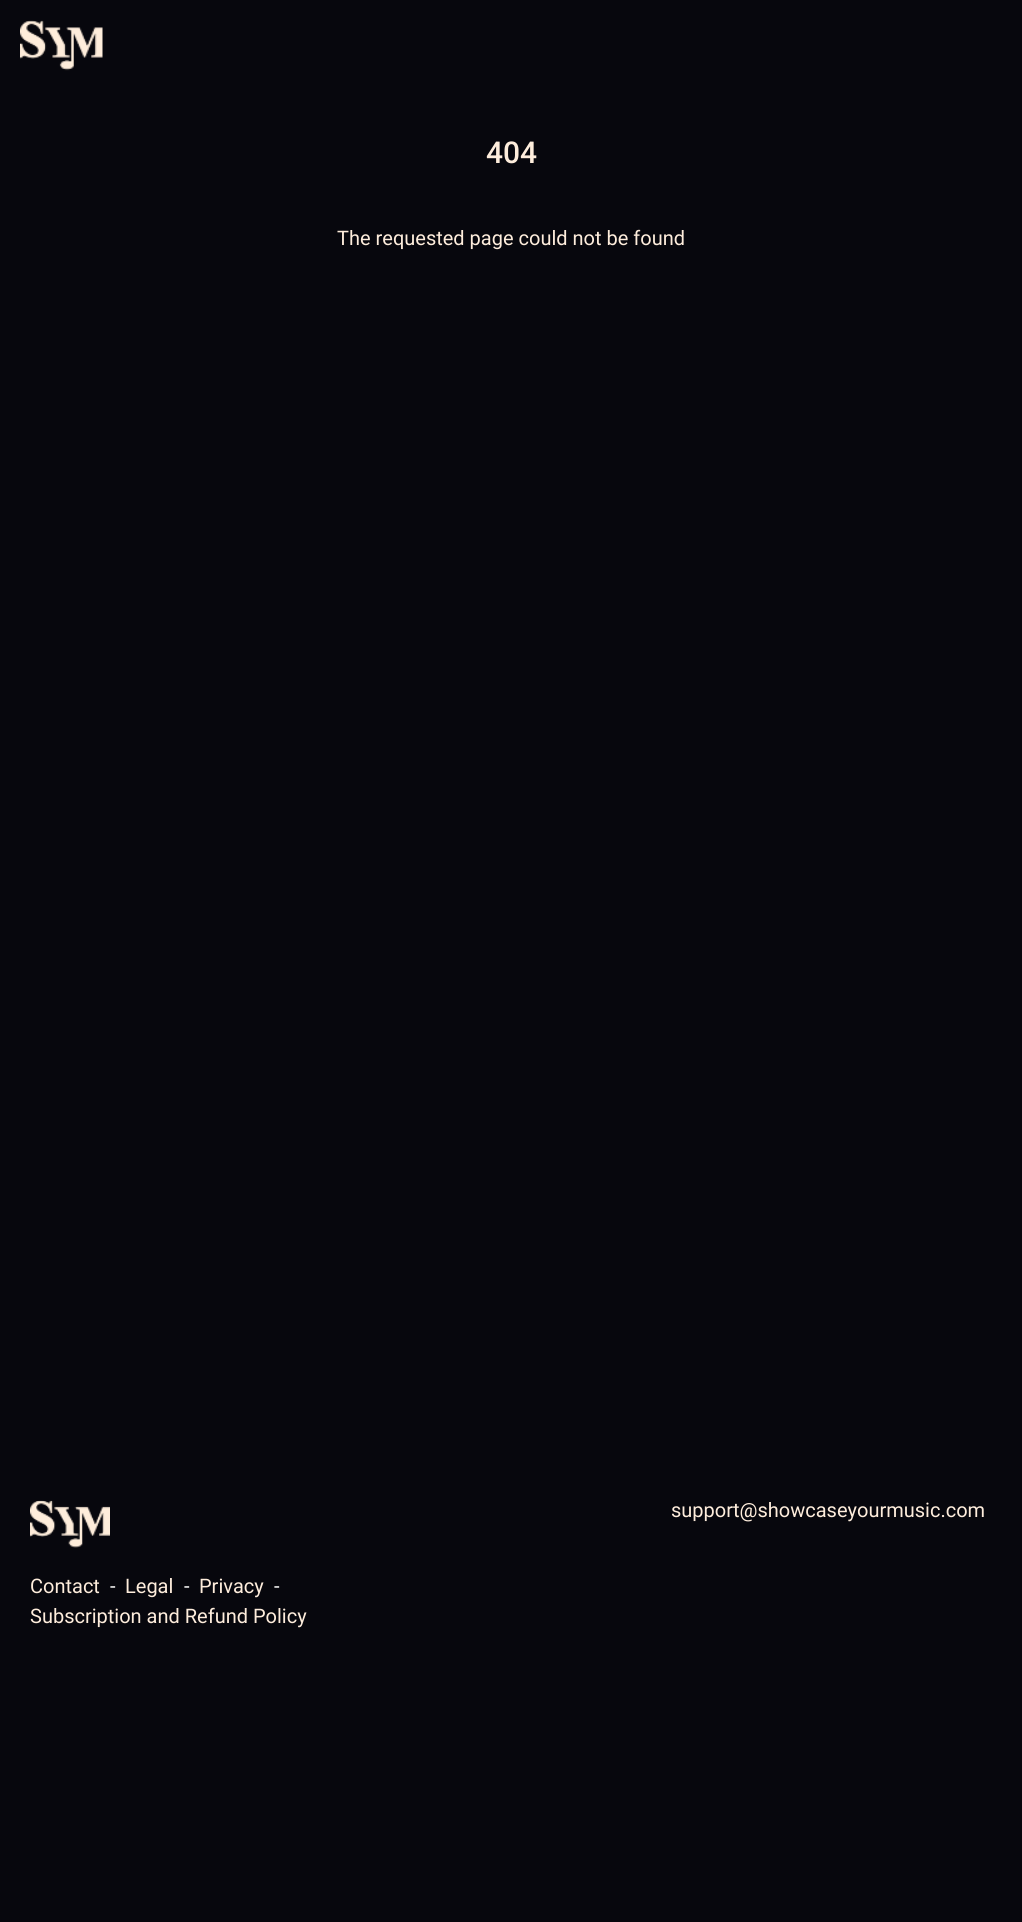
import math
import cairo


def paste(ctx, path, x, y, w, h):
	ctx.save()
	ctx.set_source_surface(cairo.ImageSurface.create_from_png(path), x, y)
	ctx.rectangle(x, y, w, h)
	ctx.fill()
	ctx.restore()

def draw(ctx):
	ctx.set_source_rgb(0.031, 0.031, 0.051)
	ctx.paint()
	paste(ctx, 'media/1.png', 20, 20, 83, 51)
	ctx.select_font_face('Roboto Medium')
	ctx.set_font_size(30)
	ctx.set_source_rgb(0.996, 0.929, 0.863)
	ctx.move_to(486, 163)
	ctx.show_text('404')
	ctx.select_font_face('Roboto')
	ctx.set_font_size(20)
	ctx.move_to(337, 245)
	ctx.show_text('The requested page could not be found')
	ctx.move_to(671, 1517)
	ctx.show_text('support@showcaseyourmusic.com')
	paste(ctx, 'media/2.png', 30, 1500, 80, 48)
	ctx.move_to(30, 1593)
	ctx.show_text('Contact')
	ctx.set_source_rgb(1, 1, 1)
	ctx.move_to(110, 1593)
	ctx.show_text('-')
	ctx.set_source_rgb(0.996, 0.929, 0.863)
	ctx.move_to(125, 1593)
	ctx.show_text('Legal')
	ctx.set_source_rgb(1, 1, 1)
	ctx.move_to(184, 1593)
	ctx.show_text('-')
	ctx.set_source_rgb(0.996, 0.929, 0.863)
	ctx.move_to(199, 1593)
	ctx.show_text('Privacy')
	ctx.set_source_rgb(1, 1, 1)
	ctx.move_to(274, 1593)
	ctx.show_text('-')
	ctx.set_source_rgb(0.996, 0.929, 0.863)
	ctx.move_to(30, 1623)
	ctx.show_text('Subscription and Refund Policy')


surface = cairo.ImageSurface(cairo.FORMAT_RGB24, 1022, 1922)
ctx = cairo.Context(surface)
options = cairo.FontOptions()
options.set_hint_metrics(cairo.HINT_METRICS_OFF)
options.set_hint_style(cairo.HINT_STYLE_NONE)
ctx.set_font_options(options)
ctx.set_miter_limit(4)
draw(ctx)
surface.write_to_png('image.png')
